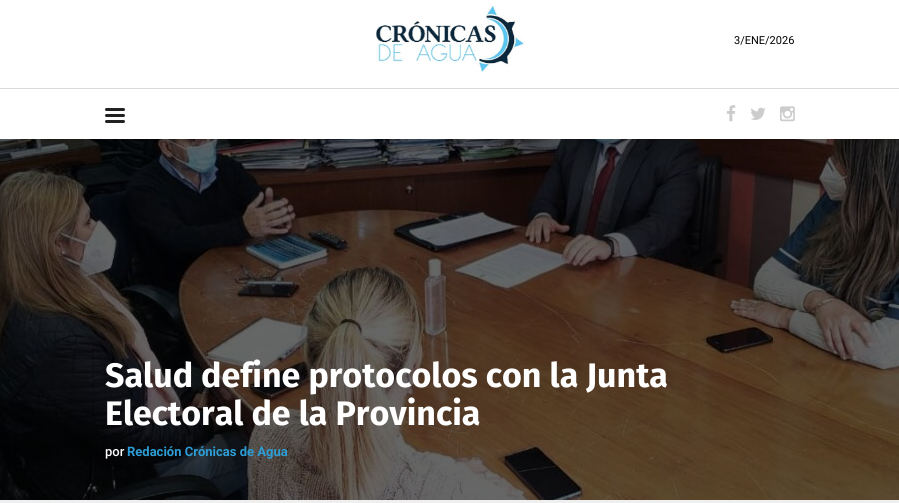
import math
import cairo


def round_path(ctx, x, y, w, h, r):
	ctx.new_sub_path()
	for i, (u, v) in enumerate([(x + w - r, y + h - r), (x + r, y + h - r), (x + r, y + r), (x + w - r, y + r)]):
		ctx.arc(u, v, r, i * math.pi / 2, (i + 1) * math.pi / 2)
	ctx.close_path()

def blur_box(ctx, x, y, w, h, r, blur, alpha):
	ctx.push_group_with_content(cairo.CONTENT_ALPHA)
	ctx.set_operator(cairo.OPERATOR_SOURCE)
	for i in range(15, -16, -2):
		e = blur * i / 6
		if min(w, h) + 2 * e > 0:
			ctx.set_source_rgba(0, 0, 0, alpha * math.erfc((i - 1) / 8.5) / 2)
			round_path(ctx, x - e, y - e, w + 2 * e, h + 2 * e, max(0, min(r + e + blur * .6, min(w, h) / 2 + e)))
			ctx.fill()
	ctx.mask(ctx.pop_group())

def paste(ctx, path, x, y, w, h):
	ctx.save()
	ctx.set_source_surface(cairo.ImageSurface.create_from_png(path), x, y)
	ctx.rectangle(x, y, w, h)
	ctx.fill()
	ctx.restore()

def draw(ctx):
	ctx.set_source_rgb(0.937, 0.937, 0.937)
	ctx.paint()
	ctx.set_source_rgb(1, 1, 1)
	ctx.rectangle(0, 0, 899, 88)
	ctx.fill()
	ctx.set_source_rgb(0.855, 0.855, 0.855)
	ctx.rectangle(0, 88, 899, 1)
	ctx.fill()
	paste(ctx, 'media/1.png', 376, 5, 148, 67)
	ctx.select_font_face('Roboto')
	ctx.set_font_size(11)
	ctx.set_source_rgb(0, 0, 0)
	ctx.move_to(734, 44)
	ctx.show_text('3/ENE/2026')
	paste(ctx, 'media/5.png', 0, 139, 899, 361)
	ctx.set_source_rgb(0, 0, 0)
	blur_box(ctx, 0, 92, 899, 50, 0, 1, 0.05)
	ctx.set_source_rgb(1, 1, 1)
	ctx.rectangle(0, 89, 899, 50)
	ctx.fill()
	ctx.set_source_rgb(0.133, 0.133, 0.133)
	round_path(ctx, 105, 108, 20, 3, 1.5)
	ctx.fill()
	round_path(ctx, 105, 114, 20, 3, 1.5)
	ctx.fill()
	round_path(ctx, 105, 120, 20, 3, 1.5)
	ctx.fill()
	paste(ctx, 'media/2.png', 726, 105, 10, 17)
	paste(ctx, 'media/3.png', 750, 107, 16, 13)
	paste(ctx, 'media/4.png', 780, 106, 15, 16)
	ctx.select_font_face('Fira Sans', cairo.FONT_SLANT_NORMAL, cairo.FONT_WEIGHT_BOLD)
	ctx.set_font_size(34)
	ctx.set_source_rgb(1, 1, 1)
	ctx.move_to(105, 387)
	ctx.show_text('Salud define protocolos con la Junta')
	ctx.move_to(105, 425)
	ctx.show_text('Electoral de la Provincia')
	ctx.select_font_face('Roboto Medium')
	ctx.set_font_size(13)
	ctx.move_to(105, 456)
	ctx.show_text('por')
	ctx.select_font_face('Roboto', cairo.FONT_SLANT_NORMAL, cairo.FONT_WEIGHT_BOLD)
	ctx.set_source_rgb(0.173, 0.62, 0.835)
	ctx.move_to(127, 456)
	ctx.show_text('Redación Crónicas de Agua')


surface = cairo.ImageSurface(cairo.FORMAT_RGB24, 899, 503)
ctx = cairo.Context(surface)
options = cairo.FontOptions()
options.set_hint_metrics(cairo.HINT_METRICS_OFF)
options.set_hint_style(cairo.HINT_STYLE_NONE)
ctx.set_font_options(options)
ctx.set_miter_limit(4)
draw(ctx)
surface.write_to_png('image.png')
